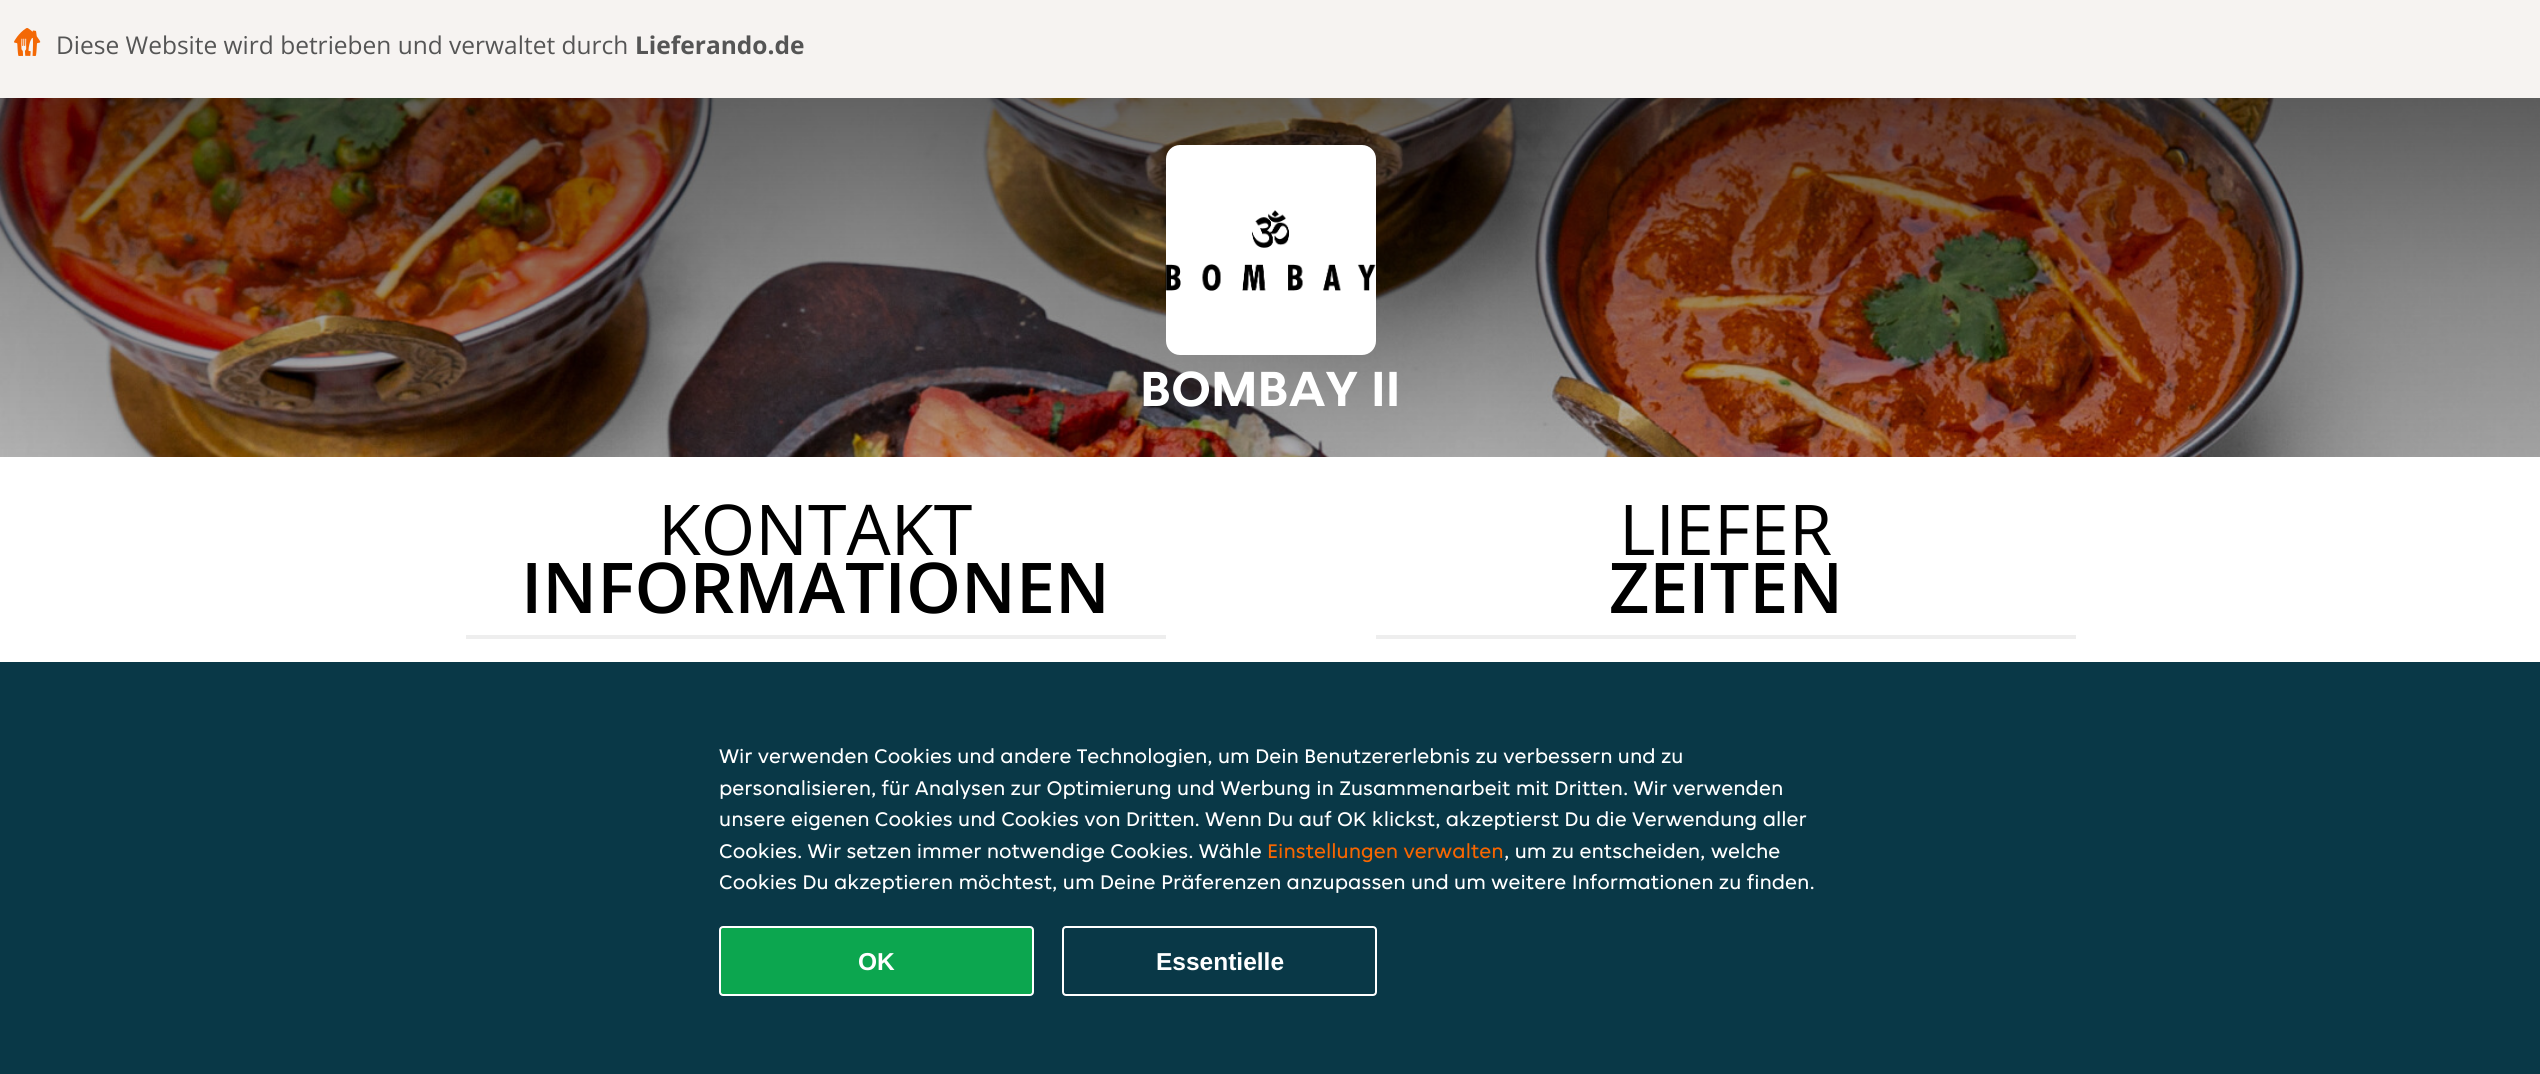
import math
import cairo


def round_path(ctx, x, y, w, h, r):
	ctx.new_sub_path()
	for i, (u, v) in enumerate([(x + w - r, y + h - r), (x + r, y + h - r), (x + r, y + r), (x + w - r, y + r)]):
		ctx.arc(u, v, r, i * math.pi / 2, (i + 1) * math.pi / 2)
	ctx.close_path()

def paste(ctx, path, x, y, w, h):
	ctx.save()
	ctx.set_source_surface(cairo.ImageSurface.create_from_png(path), x, y)
	ctx.rectangle(x, y, w, h)
	ctx.fill()
	ctx.restore()

def draw(ctx):
	ctx.set_source_rgb(1, 1, 1)
	ctx.paint()
	ctx.set_source_rgb(0.961, 0.953, 0.945)
	ctx.rectangle(0, 0, 2540, 98)
	ctx.fill()
	paste(ctx, 'media/1.png', 14, 28, 27, 28)
	ctx.select_font_face('Open Sans')
	ctx.set_font_size(24.5)
	ctx.set_source_rgb(0.333, 0.333, 0.333)
	ctx.move_to(56, 54)
	ctx.show_text('Diese Website wird betrieben und verwaltet durch')
	ctx.select_font_face('Open Sans', cairo.FONT_SLANT_NORMAL, cairo.FONT_WEIGHT_BOLD)
	ctx.move_to(635, 54)
	ctx.show_text('Lieferando.de')
	paste(ctx, 'media/2.png', 0, 98, 2540, 359)
	gradient = cairo.LinearGradient(1271, 0, 1271, 875)
	gradient.add_color_stop_rgba(0, 0, 0, 0, 0.7)
	gradient.add_color_stop_rgba(0.33, 0, 0, 0, 0.4)
	gradient.add_color_stop_rgba(0.67, 0, 0, 0, 0.2)
	gradient.add_color_stop_rgba(1, 0, 0, 0, 0)
	ctx.set_source(gradient)
	ctx.rectangle(0, 98, 2540, 359)
	ctx.fill()
	ctx.set_source_rgb(1, 1, 1)
	round_path(ctx, 1166, 145, 210, 210, 14)
	ctx.fill()
	paste(ctx, 'media/3.png', 1165, 210, 211, 81)
	ctx.select_font_face('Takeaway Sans', cairo.FONT_SLANT_NORMAL, cairo.FONT_WEIGHT_BOLD)
	ctx.set_font_size(52.5)
	ctx.move_to(1140, 406)
	ctx.show_text('BOMBAY II')
	ctx.select_font_face('Open Sans')
	ctx.set_font_size(70)
	ctx.set_source_rgb(0, 0, 0)
	ctx.move_to(658, 555)
	ctx.show_text('KONTAKT')
	ctx.select_font_face('Open Sans SemiBold')
	ctx.move_to(521, 613)
	ctx.show_text('INFORMATIONEN')
	ctx.set_source_rgb(0.933, 0.933, 0.933)
	ctx.rectangle(466, 635, 700, 4)
	ctx.fill()
	ctx.select_font_face('Open Sans')
	ctx.set_source_rgb(0, 0, 0)
	ctx.move_to(1619, 555)
	ctx.show_text('LIEFER')
	ctx.select_font_face('Open Sans SemiBold')
	ctx.move_to(1609, 613)
	ctx.show_text('ZEITEN')
	ctx.set_source_rgb(0.933, 0.933, 0.933)
	ctx.rectangle(1376, 635, 700, 4)
	ctx.fill()
	ctx.set_source_rgb(0.039, 0.22, 0.278)
	ctx.rectangle(0, 662, 2540, 412)
	ctx.fill()
	ctx.select_font_face('Takeaway Sans')
	ctx.set_font_size(21)
	ctx.set_source_rgb(1, 1, 1)
	for x, y, s in [
		(719, 763, 'Wir verwenden Cookies und andere Technologien, um Dein Benutzererlebnis zu verbessern und zu'),
		(719, 795, 'personalisieren, für Analysen zur Optimierung und Werbung in Zusammenarbeit mit Dritten. Wir verwenden'),
		(719, 826, 'unsere eigenen Cookies und Cookies von Dritten. Wenn Du auf OK klickst, akzeptierst Du die Verwendung aller'),
		(719, 858, 'Cookies. Wir setzen immer notwendige Cookies. Wähle'),
	]:
		ctx.move_to(x, y)
		ctx.show_text(s)
	ctx.set_source_rgb(0.973, 0.4, 0)
	ctx.move_to(1267, 858)
	ctx.show_text('Einstellungen verwalten')
	ctx.set_source_rgb(1, 1, 1)
	ctx.move_to(1504, 858)
	ctx.show_text(', um zu entscheiden, welche')
	ctx.move_to(719, 889)
	ctx.show_text('Cookies Du akzeptieren möchtest, um Deine Präferenzen anzupassen und um weitere Informationen zu finden.')
	ctx.set_source_rgb(0.047, 0.651, 0.31)
	round_path(ctx, 720, 927, 313, 68, 3)
	ctx.fill_preserve()
	ctx.set_source_rgb(1, 1, 1)
	ctx.stroke()
	ctx.select_font_face('Liberation Sans', cairo.FONT_SLANT_NORMAL, cairo.FONT_WEIGHT_BOLD)
	ctx.set_font_size(24.5)
	ctx.move_to(858, 970)
	ctx.show_text('OK')
	round_path(ctx, 1063, 927, 313, 68, 3)
	ctx.stroke()
	ctx.move_to(1156, 970)
	ctx.show_text('Essentielle')


surface = cairo.ImageSurface(cairo.FORMAT_RGB24, 2540, 1074)
ctx = cairo.Context(surface)
options = cairo.FontOptions()
options.set_hint_metrics(cairo.HINT_METRICS_OFF)
options.set_hint_style(cairo.HINT_STYLE_NONE)
ctx.set_font_options(options)
ctx.set_miter_limit(4)
draw(ctx)
surface.write_to_png('image.png')
